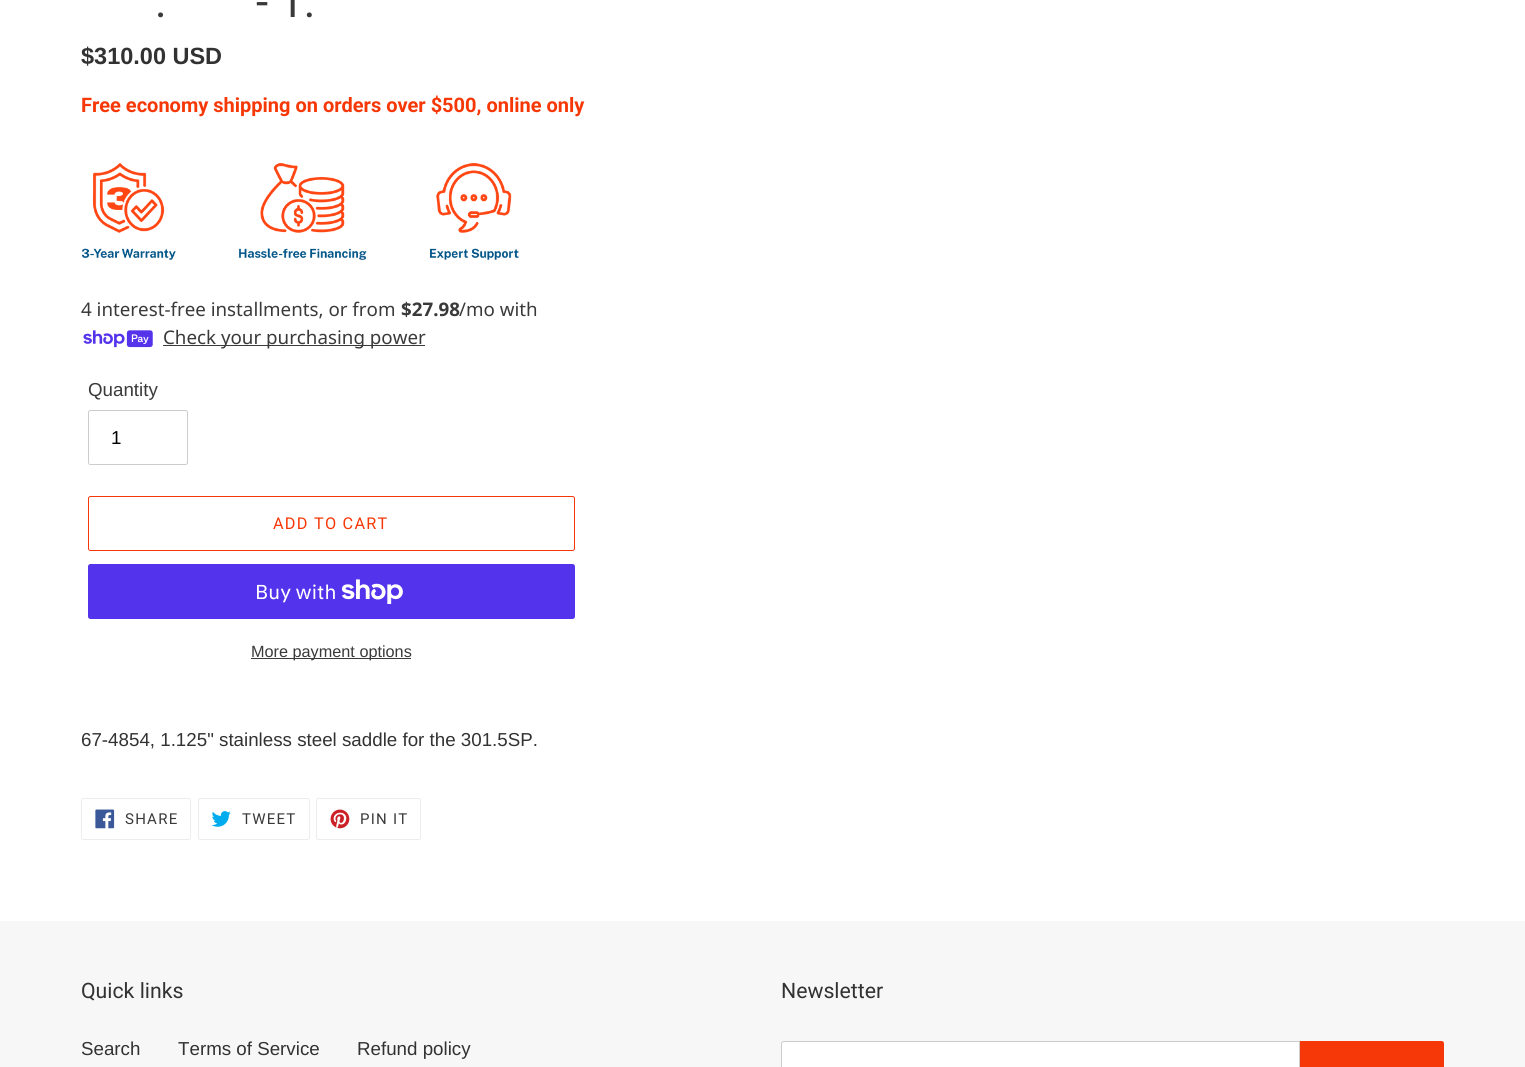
import math
import cairo


def write_spaced(ctx, x, y, s, letter, word):
	ctx.move_to(x, y)
	for ch in s:
		ctx.show_text(ch)
		ctx.rel_move_to(letter + word * (ch == ' '), 0)

def round_path(ctx, x, y, w, h, r):
	ctx.new_sub_path()
	for i, (u, v) in enumerate([(x + w - r, y + h - r), (x + r, y + h - r), (x + r, y + r), (x + w - r, y + r)]):
		ctx.arc(u, v, r, i * math.pi / 2, (i + 1) * math.pi / 2)
	ctx.close_path()

def paste(ctx, path, x, y, w, h):
	ctx.save()
	ctx.set_source_surface(cairo.ImageSurface.create_from_png(path), x, y)
	ctx.rectangle(x, y, w, h)
	ctx.fill()
	ctx.restore()

def draw(ctx):
	ctx.set_source_rgb(1, 1, 1)
	ctx.paint()
	ctx.select_font_face('Roboto')
	ctx.set_font_size(44)
	ctx.set_source_rgb(0.227, 0.227, 0.227)
	ctx.move_to(155, 17)
	ctx.show_text('.')
	ctx.move_to(256, 17)
	ctx.show_text('- 1.')
	ctx.select_font_face('Liberation Sans', cairo.FONT_SLANT_NORMAL, cairo.FONT_WEIGHT_BOLD)
	ctx.set_font_size(23.5)
	ctx.set_source_rgb(0.2, 0.196, 0.196)
	ctx.move_to(81, 64)
	ctx.show_text('$310.00 USD')
	ctx.select_font_face('Roboto', cairo.FONT_SLANT_NORMAL, cairo.FONT_WEIGHT_BOLD)
	ctx.set_font_size(20)
	ctx.set_source_rgb(0.961, 0.216, 0.027)
	ctx.move_to(81, 112)
	ctx.show_text('Free economy shipping on orders over $500, online only')
	paste(ctx, 'media/1.png', 82, 163, 437, 97)
	ctx.select_font_face('Noto Sans')
	ctx.set_font_size(18.75)
	ctx.set_source_rgb(0.227, 0.227, 0.227)
	ctx.move_to(81, 316)
	ctx.show_text('4 interest-free installments, or from')
	ctx.select_font_face('Noto Sans', cairo.FONT_SLANT_NORMAL, cairo.FONT_WEIGHT_BOLD)
	ctx.move_to(401, 316)
	ctx.show_text('$27.98')
	ctx.select_font_face('Noto Sans')
	ctx.move_to(459, 316)
	ctx.show_text('/mo with')
	paste(ctx, 'media/2.png', 83, 330, 70, 18)
	ctx.rectangle(163, 345, 262, 1)
	ctx.fill()
	ctx.move_to(163, 344)
	ctx.show_text('Check your purchasing power')
	ctx.select_font_face('Liberation Sans')
	ctx.move_to(88, 396)
	ctx.show_text('Quantity')
	round_path(ctx, 88.5, 410.5, 99, 54, 2)
	ctx.set_source_rgb(0.8, 0.8, 0.8)
	ctx.set_line_width(1)
	ctx.stroke()
	ctx.set_source_rgb(0, 0, 0)
	ctx.move_to(111, 444)
	ctx.show_text('1')
	round_path(ctx, 88.5, 496.5, 486, 54, 2)
	ctx.set_source_rgb(0.961, 0.216, 0.031)
	ctx.stroke()
	ctx.select_font_face('Roboto')
	ctx.set_font_size(16.25)
	ctx.set_source_rgb(0.961, 0.216, 0.027)
	write_spaced(ctx, 273, 529, 'ADD TO CART', 1.25, 0)
	ctx.set_source_rgb(0.329, 0.2, 0.922)
	round_path(ctx, 88, 564, 487, 55, 2.5)
	ctx.fill()
	ctx.select_font_face('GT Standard')
	ctx.set_font_size(20)
	ctx.set_source_rgb(1, 1, 1)
	ctx.move_to(255, 599)
	ctx.show_text('Buy with')
	paste(ctx, 'media/3.png', 341, 579, 62, 25)
	ctx.set_source_rgb(0.227, 0.227, 0.227)
	ctx.rectangle(251, 658, 160, 1)
	ctx.fill()
	ctx.select_font_face('Liberation Sans')
	ctx.set_font_size(16.25)
	ctx.move_to(251, 657)
	ctx.show_text('More payment options')
	ctx.set_font_size(18.75)
	ctx.set_source_rgb(0.2, 0.196, 0.196)
	ctx.move_to(81, 746)
	ctx.show_text('67-4854, 1.125" stainless steel saddle for the 301.5SP.')
	round_path(ctx, 81.5, 798.5, 109, 41, 2)
	ctx.set_source_rgb(0.922, 0.922, 0.922)
	ctx.stroke()
	paste(ctx, 'media/4.png', 95, 809, 20, 20)
	ctx.select_font_face('Roboto')
	ctx.set_font_size(15)
	ctx.set_source_rgb(0.227, 0.227, 0.227)
	write_spaced(ctx, 125, 824, 'SHARE', 1.25, 0)
	round_path(ctx, 198.5, 798.5, 111, 41, 2)
	ctx.set_source_rgb(0.922, 0.922, 0.922)
	ctx.stroke()
	paste(ctx, 'media/5.png', 211, 811, 20, 16)
	ctx.set_source_rgb(0.227, 0.227, 0.227)
	write_spaced(ctx, 242, 824, 'TWEET', 1.25, 0)
	round_path(ctx, 316.5, 798.5, 104, 41, 2)
	ctx.set_source_rgb(0.922, 0.922, 0.922)
	ctx.stroke()
	paste(ctx, 'media/6.png', 330, 809, 20, 20)
	ctx.set_source_rgb(0.227, 0.227, 0.227)
	write_spaced(ctx, 360, 824, 'PIN IT', 1.25, 0)
	ctx.set_source_rgb(0.965, 0.965, 0.965)
	ctx.rectangle(0, 921, 1525, 146)
	ctx.fill()
	ctx.set_font_size(21.25)
	ctx.set_source_rgb(0.2, 0.196, 0.196)
	ctx.move_to(81, 998)
	ctx.show_text('Quick links')
	ctx.select_font_face('Liberation Sans')
	ctx.set_font_size(18.75)
	for x, y, s in [
		(81, 1055, 'Search'),
		(178, 1055, 'Terms of Service'),
		(357, 1055, 'Refund policy'),
	]:
		ctx.move_to(x, y)
		ctx.show_text(s)
	ctx.select_font_face('Roboto')
	ctx.set_font_size(21.25)
	ctx.move_to(781, 998)
	ctx.show_text('Newsletter')
	ctx.set_source_rgb(1, 1, 1)
	ctx.new_path()
	ctx.move_to(783.5, 1041.5)
	ctx.line_to(1299.5, 1041.5)
	ctx.line_to(1299.5, 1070.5)
	ctx.line_to(783.5, 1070.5)
	ctx.curve_to(782.5, 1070.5, 781.5, 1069.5, 781.5, 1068.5)
	ctx.line_to(781.5, 1043.5)
	ctx.curve_to(781.5, 1042.5, 782.5, 1041.5, 783.5, 1041.5)
	ctx.close_path()
	ctx.fill_preserve()
	ctx.set_source_rgb(0.8, 0.8, 0.8)
	ctx.stroke()
	ctx.set_source_rgb(0.961, 0.216, 0.031)
	ctx.new_path()
	ctx.move_to(1300, 1041)
	ctx.line_to(1441.5, 1041)
	ctx.curve_to(1443, 1041, 1444, 1042, 1444, 1043.5)
	ctx.line_to(1444, 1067.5)
	ctx.curve_to(1444, 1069, 1443, 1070, 1441.5, 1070)
	ctx.line_to(1300, 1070)
	ctx.close_path()
	ctx.fill()


surface = cairo.ImageSurface(cairo.FORMAT_RGB24, 1525, 1067)
ctx = cairo.Context(surface)
options = cairo.FontOptions()
options.set_hint_metrics(cairo.HINT_METRICS_OFF)
options.set_hint_style(cairo.HINT_STYLE_NONE)
ctx.set_font_options(options)
ctx.set_miter_limit(4)
draw(ctx)
surface.write_to_png('image.png')
